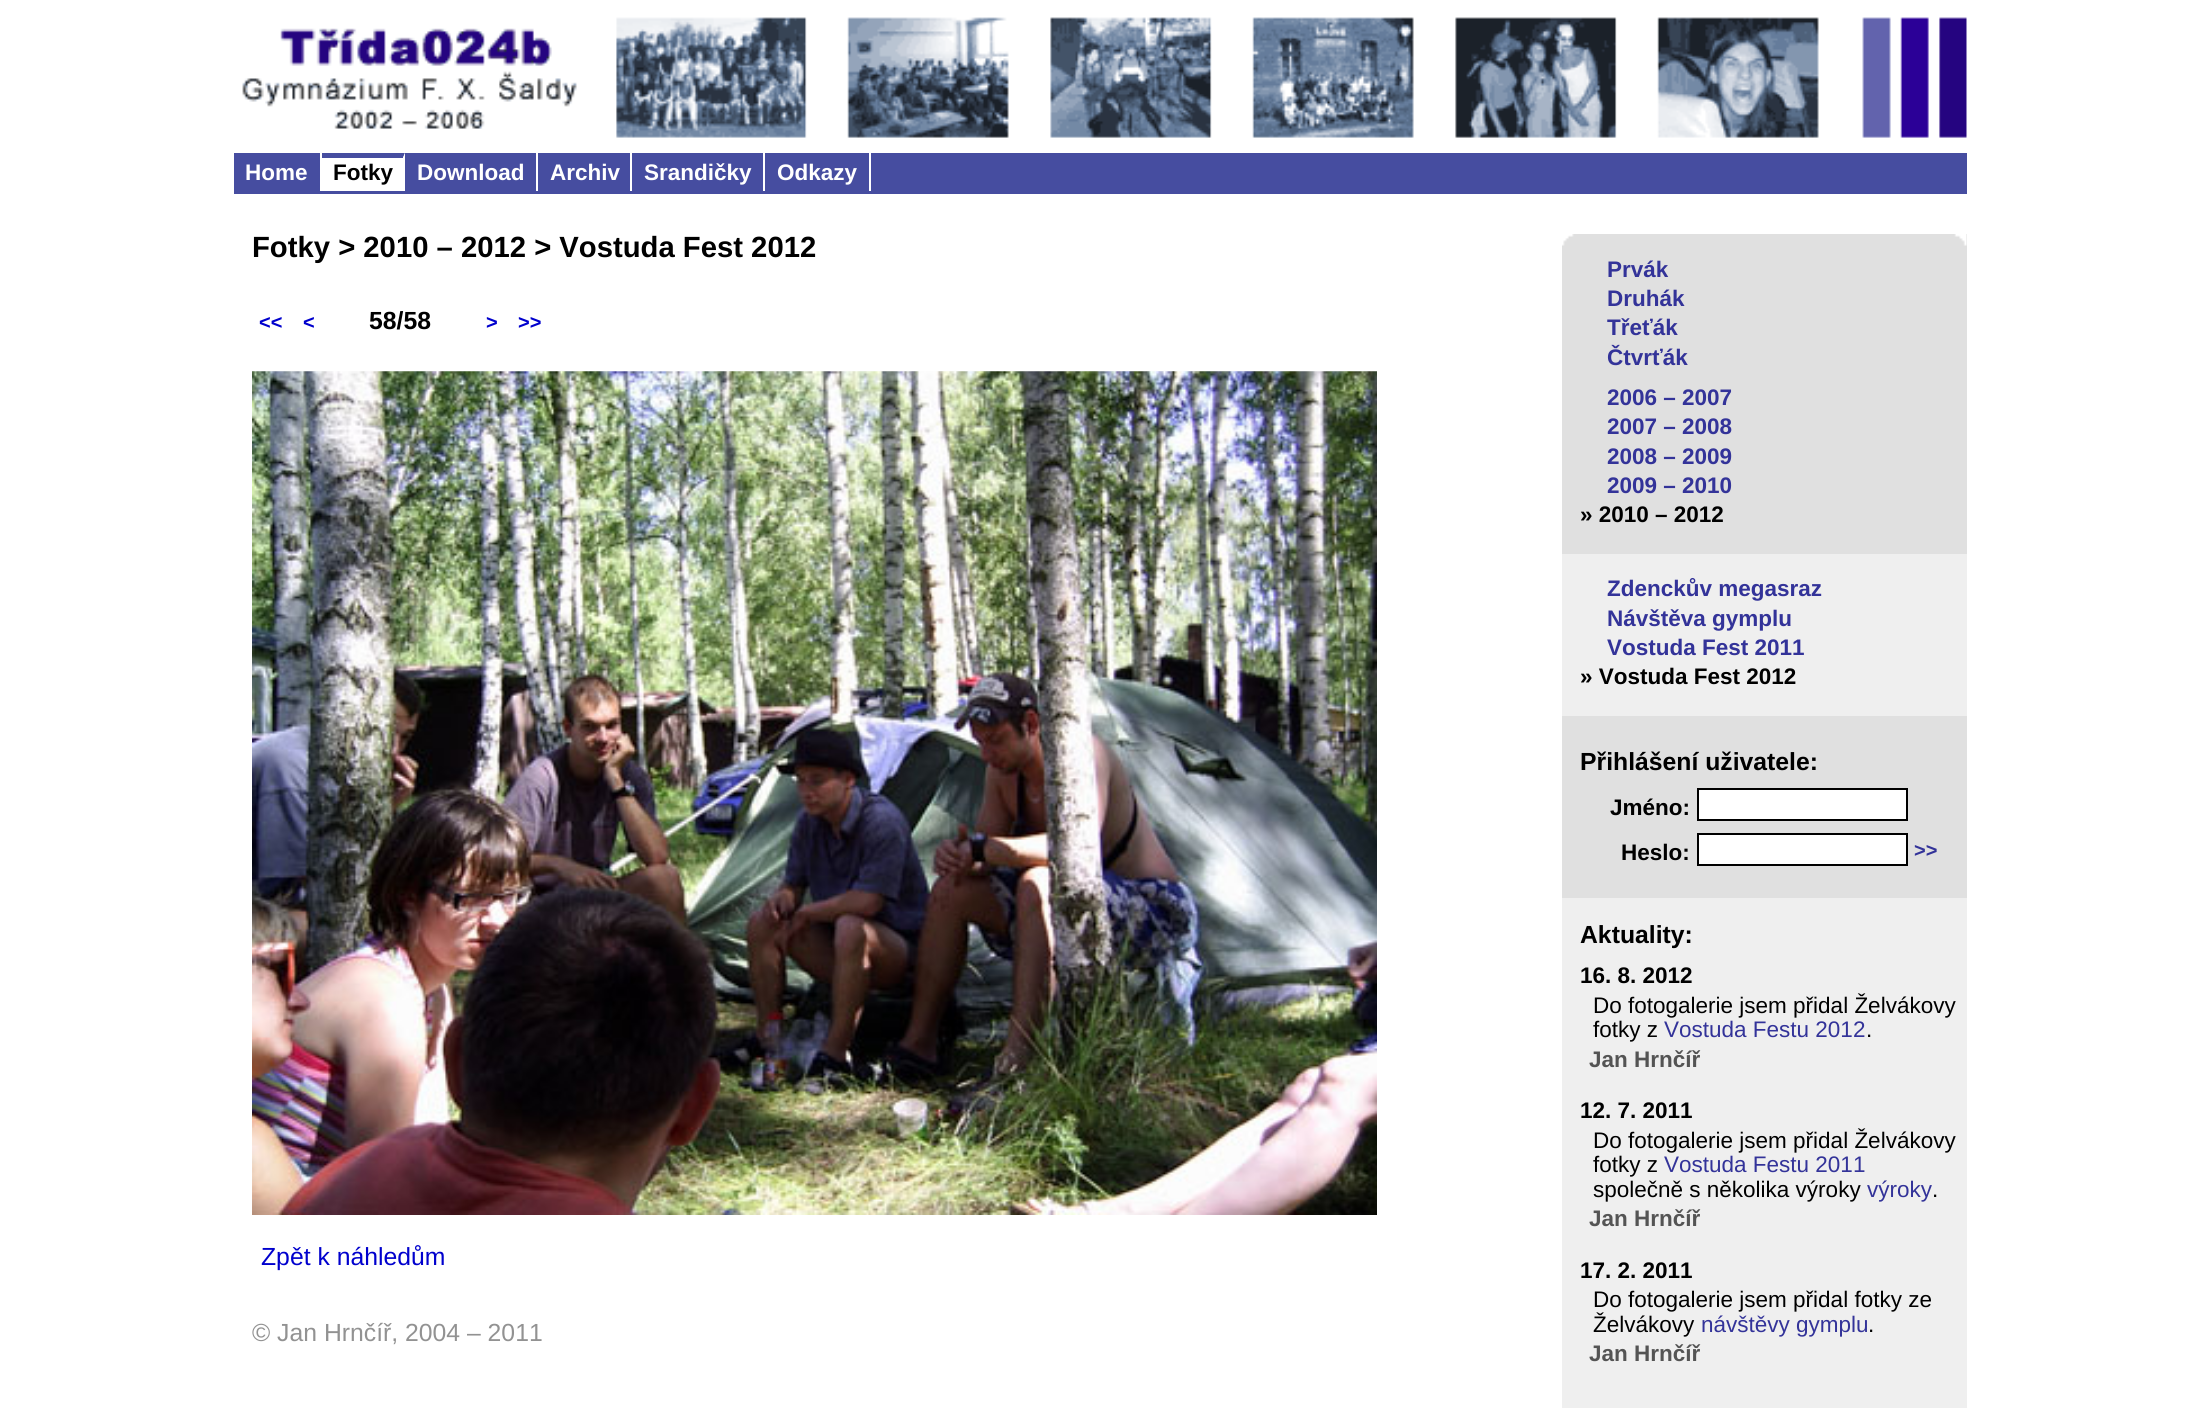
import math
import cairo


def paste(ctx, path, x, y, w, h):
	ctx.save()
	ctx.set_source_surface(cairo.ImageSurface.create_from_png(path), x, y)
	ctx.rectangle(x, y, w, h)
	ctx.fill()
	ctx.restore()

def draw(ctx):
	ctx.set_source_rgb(1, 1, 1)
	ctx.paint()
	paste(ctx, 'media/1.png', 242, 17, 1725, 121)
	ctx.set_source_rgb(0.275, 0.302, 0.627)
	ctx.rectangle(234, 153, 1733, 41)
	ctx.fill()
	ctx.set_source_rgb(1, 1, 1)
	ctx.rectangle(320, 153, 85, 38)
	ctx.fill()
	ctx.select_font_face('Liberation Sans', cairo.FONT_SLANT_NORMAL, cairo.FONT_WEIGHT_BOLD)
	ctx.set_font_size(22.5)
	ctx.move_to(245, 180)
	ctx.show_text('Home')
	ctx.set_source_rgb(0.275, 0.302, 0.627)
	ctx.new_path()
	ctx.move_to(322, 153)
	ctx.line_to(405, 153)
	ctx.line_to(403, 158)
	ctx.line_to(322, 158)
	ctx.close_path()
	ctx.fill()
	ctx.set_source_rgb(1, 1, 1)
	ctx.new_path()
	ctx.move_to(405, 153)
	ctx.line_to(405, 191)
	ctx.line_to(403, 191)
	ctx.line_to(403, 157.5)
	ctx.close_path()
	ctx.fill()
	ctx.set_source_rgb(0, 0, 0)
	ctx.move_to(333, 180)
	ctx.show_text('Fotky')
	ctx.set_source_rgb(1, 1, 1)
	ctx.rectangle(536, 153, 2, 38)
	ctx.fill()
	ctx.move_to(417, 180)
	ctx.show_text('Download')
	ctx.rectangle(630, 153, 2, 38)
	ctx.fill()
	ctx.move_to(550, 180)
	ctx.show_text('Archiv')
	ctx.rectangle(763, 153, 2, 38)
	ctx.fill()
	ctx.move_to(644, 180)
	ctx.show_text('Srandičky')
	ctx.rectangle(869, 153, 2, 38)
	ctx.fill()
	ctx.move_to(777, 180)
	ctx.show_text('Odkazy')
	ctx.set_font_size(29.25)
	ctx.set_source_rgb(0, 0, 0)
	ctx.move_to(252, 257)
	ctx.show_text('Fotky > 2010 – 2012 > Vostuda Fest 2012')
	ctx.set_font_size(20)
	ctx.set_source_rgb(0, 0, 0.804)
	ctx.move_to(259, 329)
	ctx.show_text('<<')
	ctx.move_to(303, 329)
	ctx.show_text('<')
	ctx.set_font_size(24.75)
	ctx.set_source_rgb(0, 0, 0)
	ctx.move_to(369, 329)
	ctx.show_text('58/58')
	ctx.set_font_size(20)
	ctx.set_source_rgb(0, 0, 0.804)
	ctx.move_to(486, 329)
	ctx.show_text('>')
	ctx.move_to(518, 329)
	ctx.show_text('>>')
	paste(ctx, 'media/2.png', 252, 371, 1125, 844)
	ctx.select_font_face('Liberation Sans')
	ctx.set_font_size(24.75)
	ctx.move_to(261, 1265)
	ctx.show_text('Zpět k náhledům')
	ctx.set_source_rgb(0.573, 0.573, 0.573)
	ctx.move_to(252, 1341)
	ctx.show_text('© Jan Hrnčíř, 2004 – 2011')
	ctx.set_source_rgb(0.937, 0.937, 0.937)
	ctx.rectangle(1562, 554, 405, 854)
	ctx.fill()
	ctx.set_source_rgb(0.878, 0.878, 0.878)
	ctx.rectangle(1562, 234, 405, 320)
	ctx.fill()
	paste(ctx, 'media/3.png', 1562, 234, 405, 12)
	ctx.select_font_face('Liberation Sans', cairo.FONT_SLANT_NORMAL, cairo.FONT_WEIGHT_BOLD)
	ctx.set_font_size(22.5)
	ctx.set_source_rgb(0.2, 0.2, 0.6)
	for x, y, s in [
		(1607, 277, 'Prvák'),
		(1607, 306, 'Druhák'),
		(1607, 335, 'Třeťák'),
		(1607, 365, 'Čtvrťák'),
		(1607, 405, '2006 – 2007'),
		(1607, 434, '2007 – 2008'),
		(1607, 464, '2008 – 2009'),
		(1607, 493, '2009 – 2010'),
	]:
		ctx.move_to(x, y)
		ctx.show_text(s)
	ctx.set_source_rgb(0, 0, 0)
	ctx.move_to(1580, 522)
	ctx.show_text('» 2010 – 2012')
	ctx.set_source_rgb(0.2, 0.2, 0.6)
	for x, y, s in [
		(1607, 596, 'Zdenckův megasraz'),
		(1607, 626, 'Návštěva gymplu'),
		(1607, 655, 'Vostuda Fest 2011'),
	]:
		ctx.move_to(x, y)
		ctx.show_text(s)
	ctx.set_source_rgb(0, 0, 0)
	ctx.move_to(1580, 684)
	ctx.show_text('» Vostuda Fest 2012')
	ctx.set_source_rgb(0.878, 0.878, 0.878)
	ctx.rectangle(1562, 716, 405, 182)
	ctx.fill()
	ctx.set_font_size(24.75)
	ctx.set_source_rgb(0, 0, 0)
	ctx.move_to(1580, 770)
	ctx.show_text('Přihlášení uživatele:')
	ctx.set_font_size(22.5)
	ctx.move_to(1610, 815)
	ctx.show_text('Jméno:')
	ctx.set_source_rgb(1, 1, 1)
	ctx.rectangle(1698, 789, 209, 31)
	ctx.fill_preserve()
	ctx.set_source_rgb(0, 0, 0)
	ctx.stroke()
	ctx.move_to(1621, 860)
	ctx.show_text('Heslo:')
	ctx.set_source_rgb(1, 1, 1)
	ctx.rectangle(1698, 834, 209, 31)
	ctx.fill_preserve()
	ctx.set_source_rgb(0, 0, 0)
	ctx.stroke()
	ctx.set_font_size(20)
	ctx.set_source_rgb(0.2, 0.2, 0.6)
	ctx.move_to(1914, 857)
	ctx.show_text('>>')
	ctx.set_font_size(24.75)
	ctx.set_source_rgb(0, 0, 0)
	ctx.move_to(1580, 943)
	ctx.show_text('Aktuality:')
	ctx.set_font_size(22.5)
	ctx.move_to(1580, 983)
	ctx.show_text('16. 8. 2012')
	ctx.select_font_face('Liberation Sans')
	ctx.move_to(1593, 1013)
	ctx.show_text('Do fotogalerie jsem přidal Želvákovy')
	ctx.move_to(1593, 1037)
	ctx.show_text('fotky z')
	ctx.set_source_rgb(0.2, 0.2, 0.6)
	ctx.move_to(1664, 1037)
	ctx.show_text('Vostuda Festu 2012')
	ctx.set_source_rgb(0, 0, 0)
	ctx.move_to(1866, 1037)
	ctx.show_text('.')
	ctx.select_font_face('Liberation Sans', cairo.FONT_SLANT_NORMAL, cairo.FONT_WEIGHT_BOLD)
	ctx.set_source_rgb(0.329, 0.329, 0.329)
	ctx.move_to(1589, 1067)
	ctx.show_text('Jan Hrnčíř')
	ctx.set_source_rgb(0, 0, 0)
	ctx.move_to(1580, 1118)
	ctx.show_text('12. 7. 2011')
	ctx.select_font_face('Liberation Sans')
	ctx.move_to(1593, 1148)
	ctx.show_text('Do fotogalerie jsem přidal Želvákovy')
	ctx.move_to(1593, 1172)
	ctx.show_text('fotky z')
	ctx.set_source_rgb(0.2, 0.2, 0.6)
	ctx.move_to(1664, 1172)
	ctx.show_text('Vostuda Festu 2011')
	ctx.set_source_rgb(0, 0, 0)
	ctx.move_to(1593, 1197)
	ctx.show_text('společně s několika výroky')
	ctx.set_source_rgb(0.2, 0.2, 0.6)
	ctx.move_to(1867, 1197)
	ctx.show_text('výroky')
	ctx.set_source_rgb(0, 0, 0)
	ctx.move_to(1932, 1197)
	ctx.show_text('.')
	ctx.select_font_face('Liberation Sans', cairo.FONT_SLANT_NORMAL, cairo.FONT_WEIGHT_BOLD)
	ctx.set_source_rgb(0.329, 0.329, 0.329)
	ctx.move_to(1589, 1226)
	ctx.show_text('Jan Hrnčíř')
	ctx.set_source_rgb(0, 0, 0)
	ctx.move_to(1580, 1278)
	ctx.show_text('17. 2. 2011')
	ctx.select_font_face('Liberation Sans')
	ctx.move_to(1593, 1307)
	ctx.show_text('Do fotogalerie jsem přidal fotky ze')
	ctx.move_to(1593, 1332)
	ctx.show_text('Želvákovy')
	ctx.set_source_rgb(0.2, 0.2, 0.6)
	ctx.move_to(1701, 1332)
	ctx.show_text('návštěvy gymplu')
	ctx.set_source_rgb(0, 0, 0)
	ctx.move_to(1868, 1332)
	ctx.show_text('.')
	ctx.select_font_face('Liberation Sans', cairo.FONT_SLANT_NORMAL, cairo.FONT_WEIGHT_BOLD)
	ctx.set_source_rgb(0.329, 0.329, 0.329)
	ctx.move_to(1589, 1361)
	ctx.show_text('Jan Hrnčíř')


surface = cairo.ImageSurface(cairo.FORMAT_RGB24, 2200, 1408)
ctx = cairo.Context(surface)
options = cairo.FontOptions()
options.set_hint_metrics(cairo.HINT_METRICS_OFF)
options.set_hint_style(cairo.HINT_STYLE_NONE)
ctx.set_font_options(options)
ctx.set_miter_limit(4)
draw(ctx)
surface.write_to_png('image.png')
